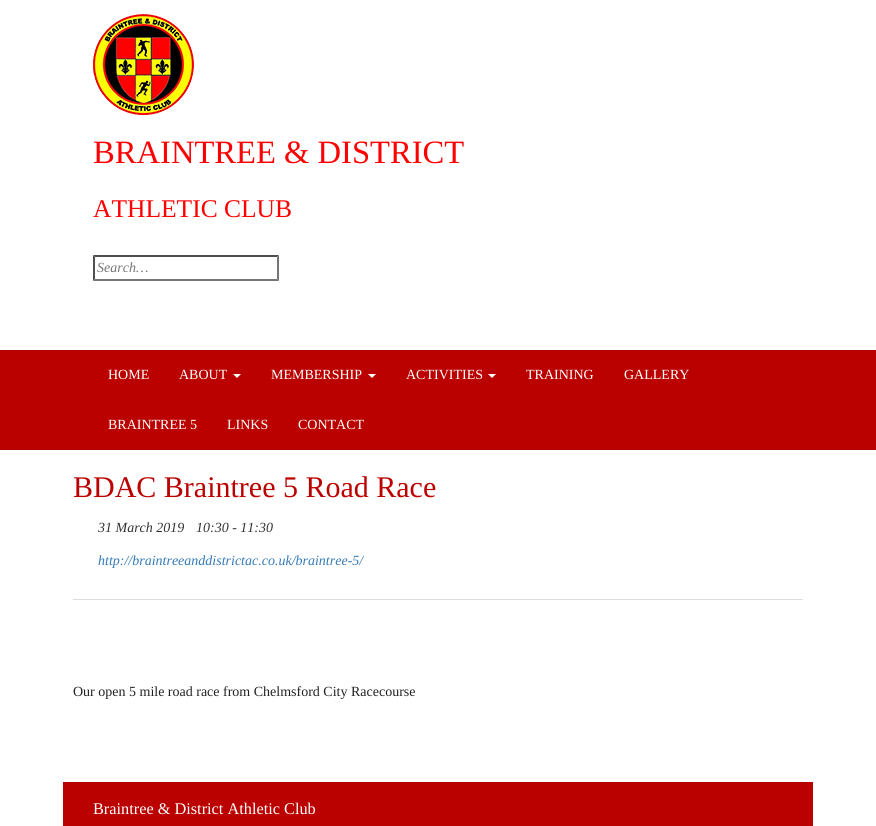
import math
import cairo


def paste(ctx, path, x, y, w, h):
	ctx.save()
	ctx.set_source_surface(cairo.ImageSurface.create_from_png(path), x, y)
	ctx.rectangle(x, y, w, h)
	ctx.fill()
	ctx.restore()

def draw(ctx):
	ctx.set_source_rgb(1, 1, 1)
	ctx.paint()
	paste(ctx, 'media/1.png', 93, 14, 101, 101)
	ctx.select_font_face('Liberation Serif')
	ctx.set_font_size(32.6)
	ctx.set_source_rgb(1, 0, 0)
	ctx.move_to(93, 163)
	ctx.show_text('BRAINTREE & DISTRICT')
	ctx.set_font_size(25.5)
	ctx.move_to(93, 217)
	ctx.show_text('ATHLETIC CLUB')
	ctx.set_source_rgb(0.31, 0.31, 0.31)
	ctx.new_path()
	ctx.move_to(93, 255)
	ctx.line_to(279, 255)
	ctx.line_to(277, 257)
	ctx.line_to(95, 257)
	ctx.close_path()
	ctx.fill()
	ctx.set_source_rgb(0.463, 0.463, 0.463)
	ctx.new_path()
	ctx.move_to(279, 255)
	ctx.line_to(279, 281)
	ctx.line_to(277, 279)
	ctx.line_to(277, 257)
	ctx.close_path()
	ctx.fill()
	ctx.new_path()
	ctx.move_to(279, 281)
	ctx.line_to(93, 281)
	ctx.line_to(95, 279)
	ctx.line_to(277, 279)
	ctx.close_path()
	ctx.fill()
	ctx.set_source_rgb(0.31, 0.31, 0.31)
	ctx.new_path()
	ctx.move_to(93, 281)
	ctx.line_to(93, 255)
	ctx.line_to(95, 257)
	ctx.line_to(95, 279)
	ctx.close_path()
	ctx.fill()
	ctx.select_font_face('Liberation Serif', cairo.FONT_SLANT_ITALIC)
	ctx.set_font_size(14)
	ctx.set_source_rgb(0.459, 0.459, 0.459)
	ctx.move_to(97, 272)
	ctx.show_text('Search…')
	ctx.set_source_rgb(0.733, 0, 0)
	ctx.rectangle(0, 350, 876, 100)
	ctx.fill()
	ctx.select_font_face('Liberation Serif')
	ctx.set_source_rgb(1, 1, 1)
	ctx.move_to(108, 379)
	ctx.show_text('HOME')
	ctx.move_to(179, 379)
	ctx.show_text('ABOUT')
	ctx.new_path()
	ctx.move_to(233, 374)
	ctx.line_to(241, 374)
	ctx.line_to(237, 378)
	ctx.close_path()
	ctx.fill()
	ctx.move_to(271, 379)
	ctx.show_text('MEMBERSHIP')
	ctx.new_path()
	ctx.move_to(368, 374)
	ctx.line_to(376, 374)
	ctx.line_to(372, 378)
	ctx.close_path()
	ctx.fill()
	ctx.move_to(406, 379)
	ctx.show_text('ACTIVITIES')
	ctx.new_path()
	ctx.move_to(488, 374)
	ctx.line_to(496, 374)
	ctx.line_to(492, 378)
	ctx.close_path()
	ctx.fill()
	for x, y, s in [
		(526, 379, 'TRAINING'),
		(624, 379, 'GALLERY'),
		(108, 429, 'BRAINTREE 5'),
		(227, 429, 'LINKS'),
		(298, 429, 'CONTACT'),
	]:
		ctx.move_to(x, y)
		ctx.show_text(s)
	ctx.set_font_size(30)
	ctx.set_source_rgb(0.733, 0, 0)
	ctx.move_to(73, 497)
	ctx.show_text('BDAC Braintree 5 Road Race')
	ctx.select_font_face('Liberation Serif', cairo.FONT_SLANT_ITALIC)
	ctx.set_font_size(14)
	ctx.set_source_rgb(0.2, 0.2, 0.2)
	ctx.move_to(98, 532)
	ctx.show_text('31 March 2019')
	ctx.move_to(196, 532)
	ctx.show_text('10:30 - 11:30')
	ctx.set_source_rgb(0.2, 0.478, 0.718)
	ctx.move_to(98, 565)
	ctx.show_text('http://braintreeanddistrictac.co.uk/braintree-5/')
	ctx.set_source_rgb(0.867, 0.867, 0.867)
	ctx.rectangle(73, 599, 730, 1)
	ctx.fill()
	ctx.select_font_face('Liberation Serif')
	ctx.set_source_rgb(0.133, 0.133, 0.133)
	ctx.move_to(73, 696)
	ctx.show_text('Our open 5 mile road race from Chelmsford City Racecourse')
	ctx.set_source_rgb(0.733, 0, 0)
	ctx.rectangle(63, 782, 750, 44)
	ctx.fill()
	ctx.set_font_size(16.3)
	ctx.set_source_rgb(1, 1, 1)
	ctx.move_to(93, 814)
	ctx.show_text('Braintree & District Athletic Club')


surface = cairo.ImageSurface(cairo.FORMAT_RGB24, 876, 826)
ctx = cairo.Context(surface)
options = cairo.FontOptions()
options.set_hint_metrics(cairo.HINT_METRICS_OFF)
options.set_hint_style(cairo.HINT_STYLE_NONE)
ctx.set_font_options(options)
ctx.set_miter_limit(4)
draw(ctx)
surface.write_to_png('image.png')
